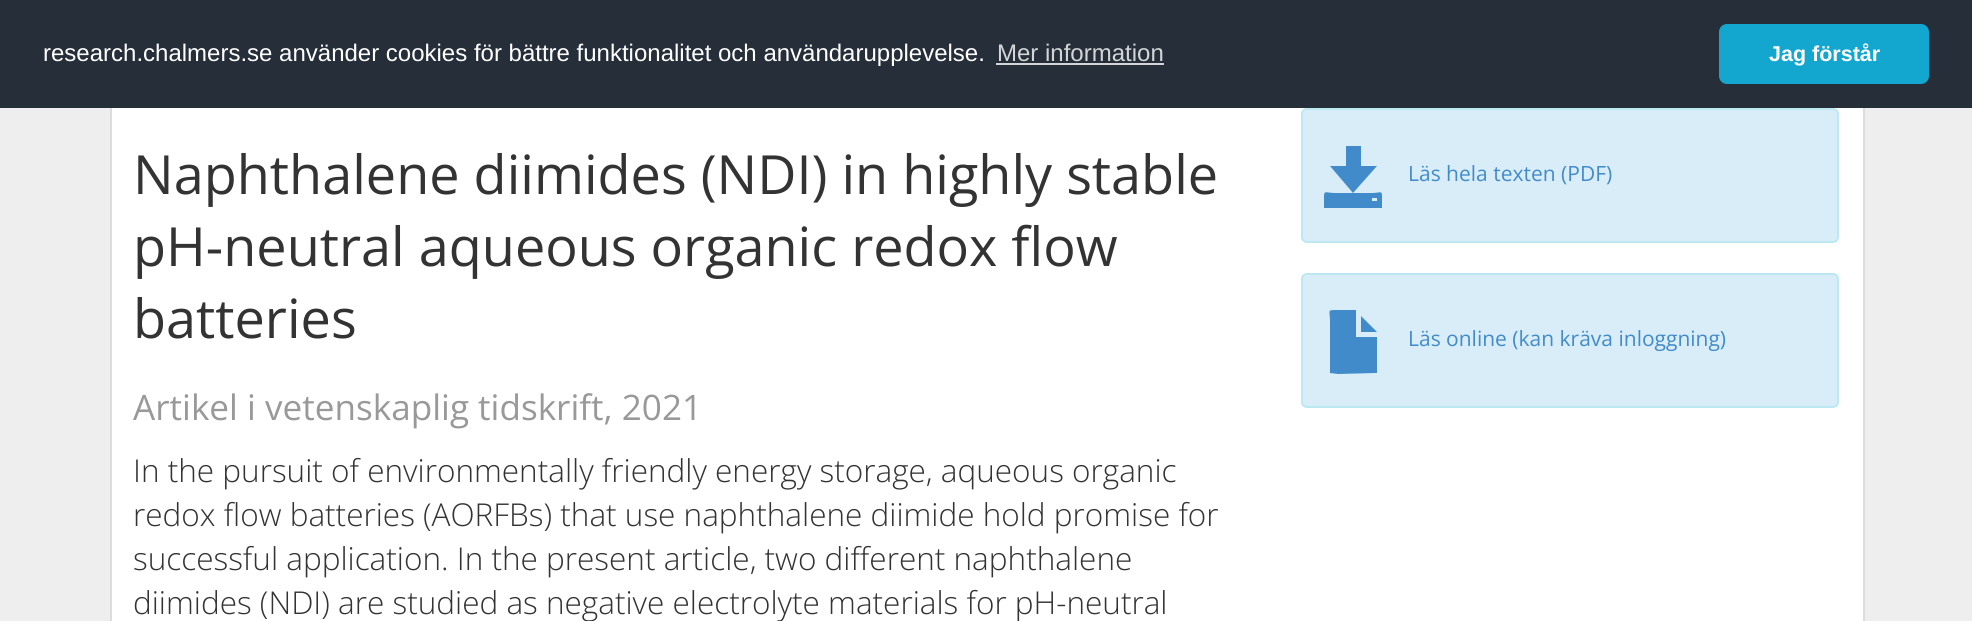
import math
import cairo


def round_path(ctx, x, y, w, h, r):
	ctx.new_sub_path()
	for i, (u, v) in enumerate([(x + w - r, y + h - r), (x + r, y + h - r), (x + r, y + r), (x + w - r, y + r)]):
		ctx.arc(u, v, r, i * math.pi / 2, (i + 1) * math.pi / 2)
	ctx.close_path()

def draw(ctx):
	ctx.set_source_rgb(0.933, 0.933, 0.933)
	ctx.paint()
	ctx.set_source_rgb(0.145, 0.18, 0.224)
	ctx.rectangle(0, 0, 1972, 108)
	ctx.fill()
	ctx.select_font_face('Liberation Sans')
	ctx.set_font_size(24)
	ctx.set_source_rgb(1, 1, 1)
	ctx.move_to(43, 61)
	ctx.show_text('research.chalmers.se använder cookies för bättre funktionalitet och användarupplevelse.')
	ctx.set_source_rgb(0.827, 0.835, 0.843)
	ctx.move_to(997, 61)
	ctx.show_text('Mer information')
	ctx.rectangle(996, 63, 168, 2)
	ctx.fill()
	ctx.set_source_rgb(0.078, 0.655, 0.816)
	round_path(ctx, 1719, 24, 210, 60, 8)
	ctx.fill()
	ctx.select_font_face('Liberation Sans', cairo.FONT_SLANT_NORMAL, cairo.FONT_WEIGHT_BOLD)
	ctx.set_font_size(21.5)
	ctx.set_source_rgb(1, 1, 1)
	ctx.move_to(1769, 61)
	ctx.show_text('Jag förstår')
	ctx.rectangle(112, 108, 1751, 513)
	ctx.fill()
	ctx.set_source_rgb(0.863, 0.863, 0.863)
	ctx.rectangle(1863, 108, 2, 513)
	ctx.rectangle(110, 108, 2, 513)
	ctx.fill()
	ctx.select_font_face('Open Sans')
	ctx.set_font_size(54)
	ctx.set_source_rgb(0.2, 0.2, 0.2)
	for x, y, s in [
		(133, 194, 'Naphthalene diimides (NDI) in highly stable'),
		(133, 266, 'pH-neutral aqueous organic redox flow'),
		(133, 338, 'batteries'),
	]:
		ctx.move_to(x, y)
		ctx.show_text(s)
	ctx.set_font_size(35.1)
	ctx.set_source_rgb(0.6, 0.6, 0.6)
	ctx.move_to(133, 420)
	ctx.show_text('Artikel i vetenskaplig tidskrift, 2021')
	ctx.select_font_face('Open Sans Light')
	ctx.set_font_size(31.5)
	ctx.set_source_rgb(0.2, 0.2, 0.2)
	for x, y, s in [
		(133, 482, 'In the pursuit of environmentally friendly energy storage, aqueous organic'),
		(133, 526, 'redox flow batteries (AORFBs) that use naphthalene diimide hold promise for'),
		(133, 570, 'successful application. In the present article, two different naphthalene'),
		(133, 614, 'diimides (NDI) are studied as negative electrolyte materials for pH-neutral'),
	]:
		ctx.move_to(x, y)
		ctx.show_text(s)
	ctx.set_source_rgb(0.851, 0.929, 0.969)
	round_path(ctx, 1302, 109, 536, 133, 5)
	ctx.fill_preserve()
	ctx.set_source_rgb(0.737, 0.91, 0.945)
	ctx.stroke()
	ctx.set_source_rgb(0.259, 0.545, 0.792)
	ctx.new_path()
	ctx.move_to(1324, 208)
	ctx.line_to(1324, 196)
	ctx.curve_to(1324, 190, 1327, 193, 1335, 193)
	ctx.line_to(1372, 193)
	ctx.curve_to(1380, 193, 1382, 190, 1382, 196)
	ctx.line_to(1382, 208)
	ctx.close_path()
	ctx.move_to(1330, 166)
	ctx.line_to(1353, 193)
	ctx.line_to(1377, 166)
	ctx.line_to(1361, 166)
	ctx.line_to(1361, 146)
	ctx.line_to(1346, 146)
	ctx.line_to(1346, 166)
	ctx.close_path()
	ctx.move_to(1372, 201)
	ctx.line_to(1377, 201)
	ctx.line_to(1377, 198)
	ctx.line_to(1372, 198)
	ctx.close_path()
	ctx.fill()
	ctx.select_font_face('Open Sans')
	ctx.set_font_size(21)
	ctx.move_to(1408, 181)
	ctx.show_text('Läs hela texten (PDF)')
	ctx.set_source_rgb(0.851, 0.929, 0.969)
	round_path(ctx, 1302, 274, 536, 133, 5)
	ctx.fill_preserve()
	ctx.set_source_rgb(0.737, 0.91, 0.945)
	ctx.stroke()
	ctx.set_source_rgb(0.259, 0.545, 0.792)
	ctx.new_path()
	ctx.move_to(1330, 372)
	ctx.line_to(1330, 322)
	ctx.curve_to(1330, 311, 1327, 310, 1335, 310)
	ctx.line_to(1356, 310)
	ctx.line_to(1356, 337)
	ctx.line_to(1377, 337)
	ctx.line_to(1377, 373)
	ctx.line_to(1376, 373)
	ctx.line_to(1338, 374)
	ctx.line_to(1330, 373)
	ctx.close_path()
	ctx.move_to(1361, 332)
	ctx.line_to(1361, 316)
	ctx.line_to(1377, 332)
	ctx.close_path()
	ctx.fill()
	ctx.move_to(1408, 346)
	ctx.show_text('Läs online (kan kräva inloggning)')


surface = cairo.ImageSurface(cairo.FORMAT_RGB24, 1972, 621)
ctx = cairo.Context(surface)
options = cairo.FontOptions()
options.set_hint_metrics(cairo.HINT_METRICS_OFF)
options.set_hint_style(cairo.HINT_STYLE_NONE)
ctx.set_font_options(options)
ctx.set_miter_limit(4)
draw(ctx)
surface.write_to_png('image.png')
